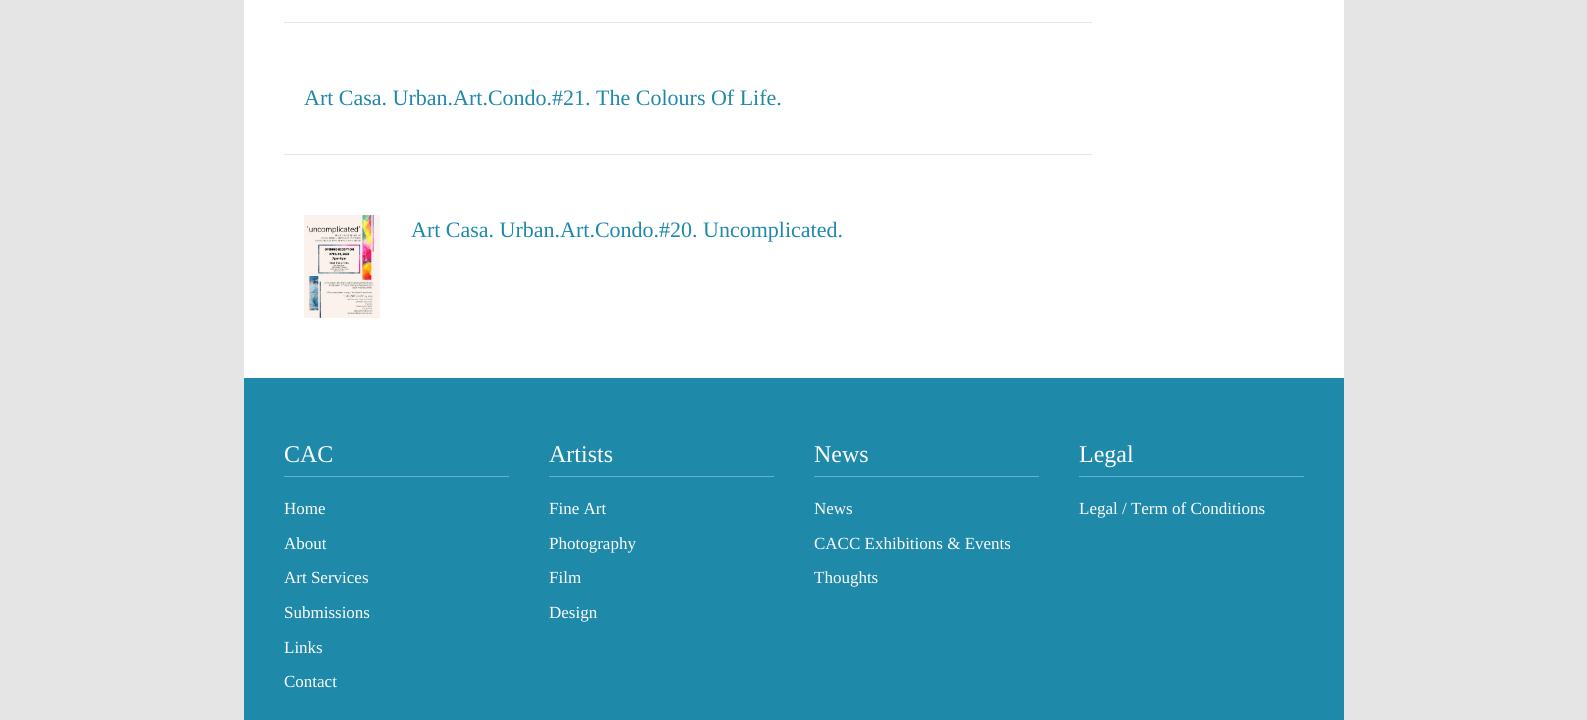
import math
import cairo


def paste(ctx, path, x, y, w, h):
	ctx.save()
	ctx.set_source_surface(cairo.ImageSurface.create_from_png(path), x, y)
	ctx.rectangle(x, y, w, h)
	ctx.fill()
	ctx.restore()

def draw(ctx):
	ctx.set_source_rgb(0.898, 0.898, 0.898)
	ctx.paint()
	ctx.set_source_rgb(1, 1, 1)
	ctx.rectangle(244, 0, 1100, 378)
	ctx.fill()
	ctx.set_source_rgb(0.902, 0.902, 0.902)
	ctx.rectangle(284, 22, 808, 1)
	ctx.rectangle(284, 154, 808, 1)
	ctx.fill()
	ctx.select_font_face('Liberation Serif')
	ctx.set_font_size(22)
	ctx.set_source_rgb(0.118, 0.537, 0.663)
	ctx.move_to(304, 105)
	ctx.show_text('Art Casa. Urban.Art.Condo.#21. The Colours Of Life.')
	paste(ctx, 'media/1.png', 304, 215, 76, 103)
	ctx.move_to(411, 237)
	ctx.show_text('Art Casa. Urban.Art.Condo.#20. Uncomplicated.')
	ctx.rectangle(244, 378, 1100, 342)
	ctx.fill()
	ctx.set_font_size(24)
	ctx.set_source_rgb(1, 1, 1)
	ctx.move_to(284, 462)
	ctx.show_text('CAC')
	ctx.set_source_rgb(0.384, 0.706, 0.808)
	ctx.rectangle(284, 476, 225, 1)
	ctx.fill()
	ctx.set_font_size(17)
	ctx.set_source_rgb(1, 1, 1)
	for x, y, s in [
		(284, 514, 'Home'),
		(284, 549, 'About'),
		(284, 583, 'Art Services'),
		(284, 618, 'Submissions'),
		(284, 653, 'Links'),
		(284, 687, 'Contact'),
	]:
		ctx.move_to(x, y)
		ctx.show_text(s)
	ctx.set_font_size(24)
	ctx.move_to(549, 462)
	ctx.show_text('Artists')
	ctx.set_source_rgb(0.384, 0.706, 0.808)
	ctx.rectangle(549, 476, 225, 1)
	ctx.fill()
	ctx.set_font_size(17)
	ctx.set_source_rgb(1, 1, 1)
	for x, y, s in [
		(549, 514, 'Fine Art'),
		(549, 549, 'Photography'),
		(549, 583, 'Film'),
		(549, 618, 'Design'),
	]:
		ctx.move_to(x, y)
		ctx.show_text(s)
	ctx.set_font_size(24)
	ctx.move_to(814, 462)
	ctx.show_text('News')
	ctx.set_source_rgb(0.384, 0.706, 0.808)
	ctx.rectangle(814, 476, 225, 1)
	ctx.fill()
	ctx.set_font_size(17)
	ctx.set_source_rgb(1, 1, 1)
	for x, y, s in [
		(814, 514, 'News'),
		(814, 549, 'CACC Exhibitions & Events'),
		(814, 583, 'Thoughts'),
	]:
		ctx.move_to(x, y)
		ctx.show_text(s)
	ctx.set_font_size(24)
	ctx.move_to(1079, 462)
	ctx.show_text('Legal')
	ctx.set_source_rgb(0.384, 0.706, 0.808)
	ctx.rectangle(1079, 476, 225, 1)
	ctx.fill()
	ctx.set_font_size(17)
	ctx.set_source_rgb(1, 1, 1)
	ctx.move_to(1079, 514)
	ctx.show_text('Legal / Term of Conditions')


surface = cairo.ImageSurface(cairo.FORMAT_RGB24, 1587, 720)
ctx = cairo.Context(surface)
options = cairo.FontOptions()
options.set_hint_metrics(cairo.HINT_METRICS_OFF)
options.set_hint_style(cairo.HINT_STYLE_NONE)
ctx.set_font_options(options)
ctx.set_miter_limit(4)
draw(ctx)
surface.write_to_png('image.png')
